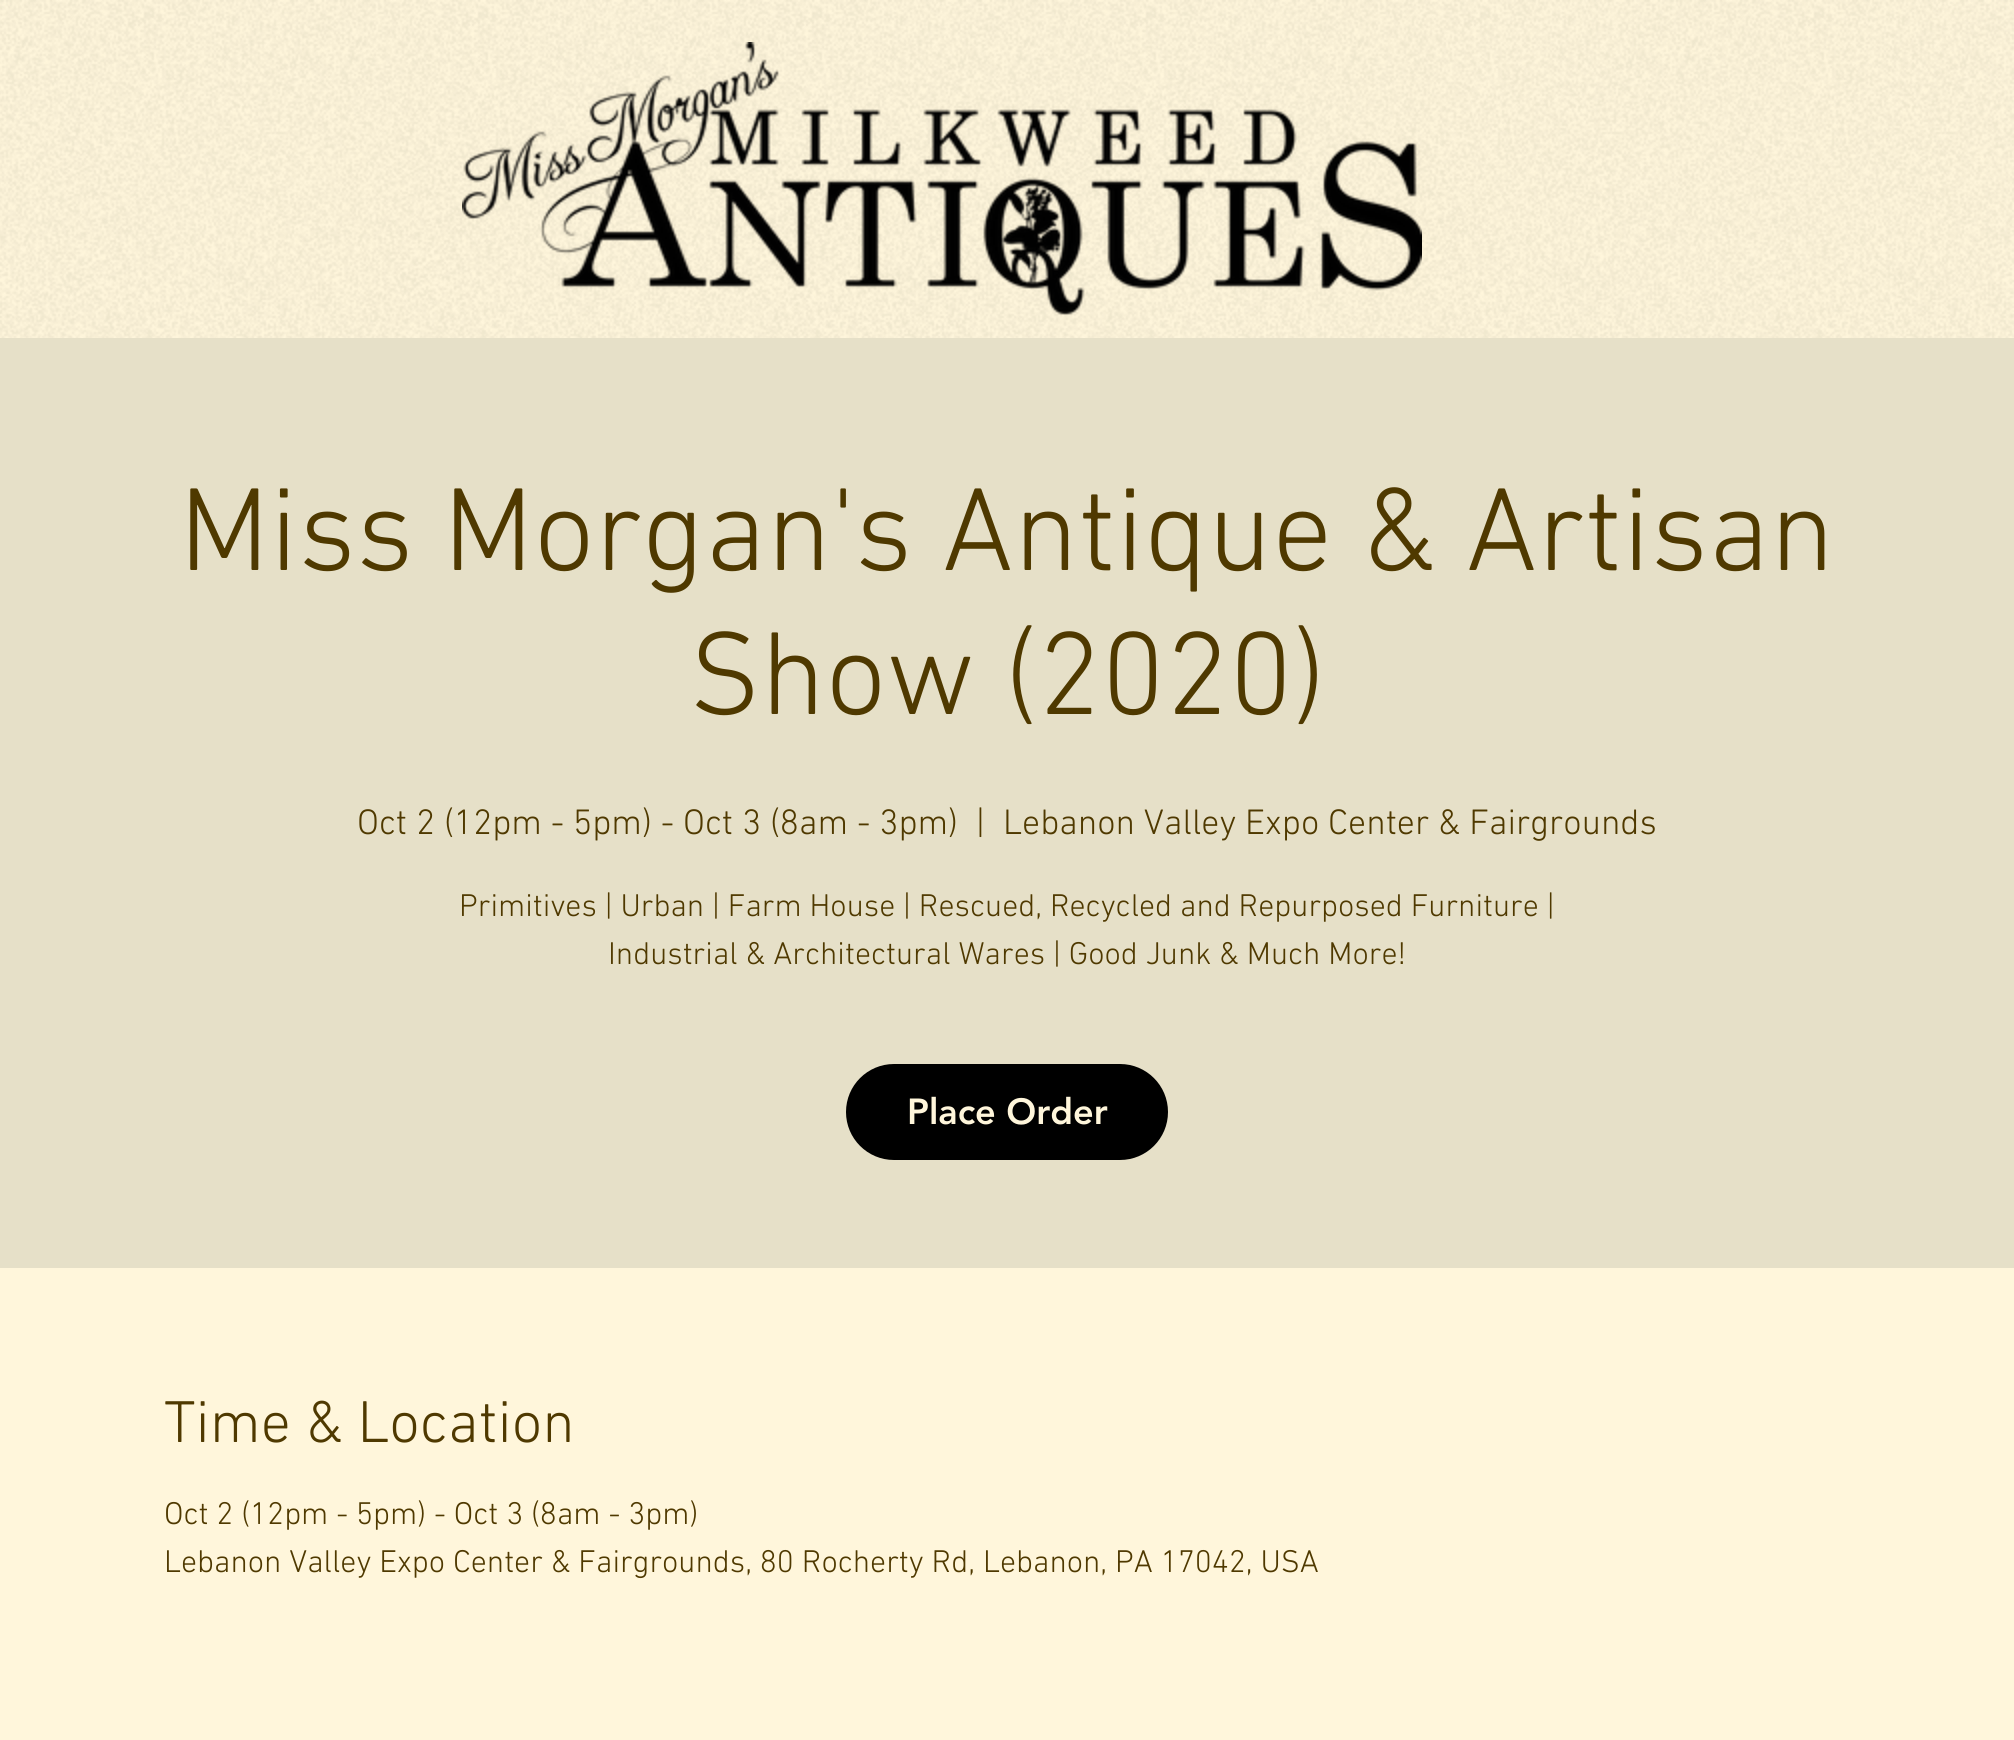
import math
import cairo


def round_path(ctx, x, y, w, h, r):
	ctx.new_sub_path()
	for i, (u, v) in enumerate([(x + w - r, y + h - r), (x + r, y + h - r), (x + r, y + r), (x + w - r, y + r)]):
		ctx.arc(u, v, r, i * math.pi / 2, (i + 1) * math.pi / 2)
	ctx.close_path()

def paste(ctx, path, x, y, w, h):
	ctx.save()
	ctx.set_source_surface(cairo.ImageSurface.create_from_png(path), x, y)
	ctx.rectangle(x, y, w, h)
	ctx.fill()
	ctx.restore()

def draw(ctx):
	ctx.set_source_rgb(1, 0.961, 0.859)
	ctx.paint()
	paste(ctx, 'media/1.png', 0, 0, 2014, 338)
	paste(ctx, 'media/2.png', 462, 42, 960, 273)
	ctx.set_source_rgb(0.902, 0.878, 0.784)
	ctx.rectangle(0, 338, 2014, 930)
	ctx.fill()
	ctx.select_font_face('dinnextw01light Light')
	ctx.set_font_size(120)
	ctx.set_source_rgb(0.31, 0.224, 0)
	ctx.move_to(179, 570)
	ctx.show_text('Miss Morgan\'s Antique & Artisan')
	ctx.move_to(689, 714)
	ctx.show_text('Show (2020)')
	ctx.set_font_size(36)
	for x, y, s in [
		(357, 834, 'Oct 2 (12pm - 5pm) - Oct 3 (8am - 3pm)'),
		(976, 834, '|'),
		(1003, 834, 'Lebanon Valley Expo Center & Fairgrounds'),
	]:
		ctx.move_to(x, y)
		ctx.show_text(s)
	ctx.set_font_size(32)
	ctx.move_to(459, 916)
	ctx.show_text('Primitives | Urban | Farm House | Rescued, Recycled and Repurposed Furniture |')
	ctx.move_to(608, 964)
	ctx.show_text('Industrial & Architectural Wares | Good Junk & Much More!')
	ctx.set_source_rgb(0, 0, 0)
	round_path(ctx, 846, 1064, 322, 96, 48)
	ctx.fill()
	ctx.select_font_face('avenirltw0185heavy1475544 Black')
	ctx.set_font_size(36)
	ctx.set_source_rgb(1, 0.961, 0.859)
	ctx.move_to(907, 1124)
	ctx.show_text('Place Order')
	ctx.select_font_face('dinnextw01light Light')
	ctx.set_font_size(60)
	ctx.set_source_rgb(0.31, 0.224, 0)
	ctx.move_to(164, 1442)
	ctx.show_text('Time & Location')
	ctx.set_font_size(32)
	ctx.move_to(164, 1524)
	ctx.show_text('Oct 2 (12pm - 5pm) - Oct 3 (8am - 3pm)')
	ctx.move_to(164, 1572)
	ctx.show_text('Lebanon Valley Expo Center & Fairgrounds, 80 Rocherty Rd, Lebanon, PA 17042, USA')


surface = cairo.ImageSurface(cairo.FORMAT_RGB24, 2014, 1740)
ctx = cairo.Context(surface)
options = cairo.FontOptions()
options.set_hint_metrics(cairo.HINT_METRICS_OFF)
options.set_hint_style(cairo.HINT_STYLE_NONE)
ctx.set_font_options(options)
ctx.set_miter_limit(4)
draw(ctx)
surface.write_to_png('image.png')
